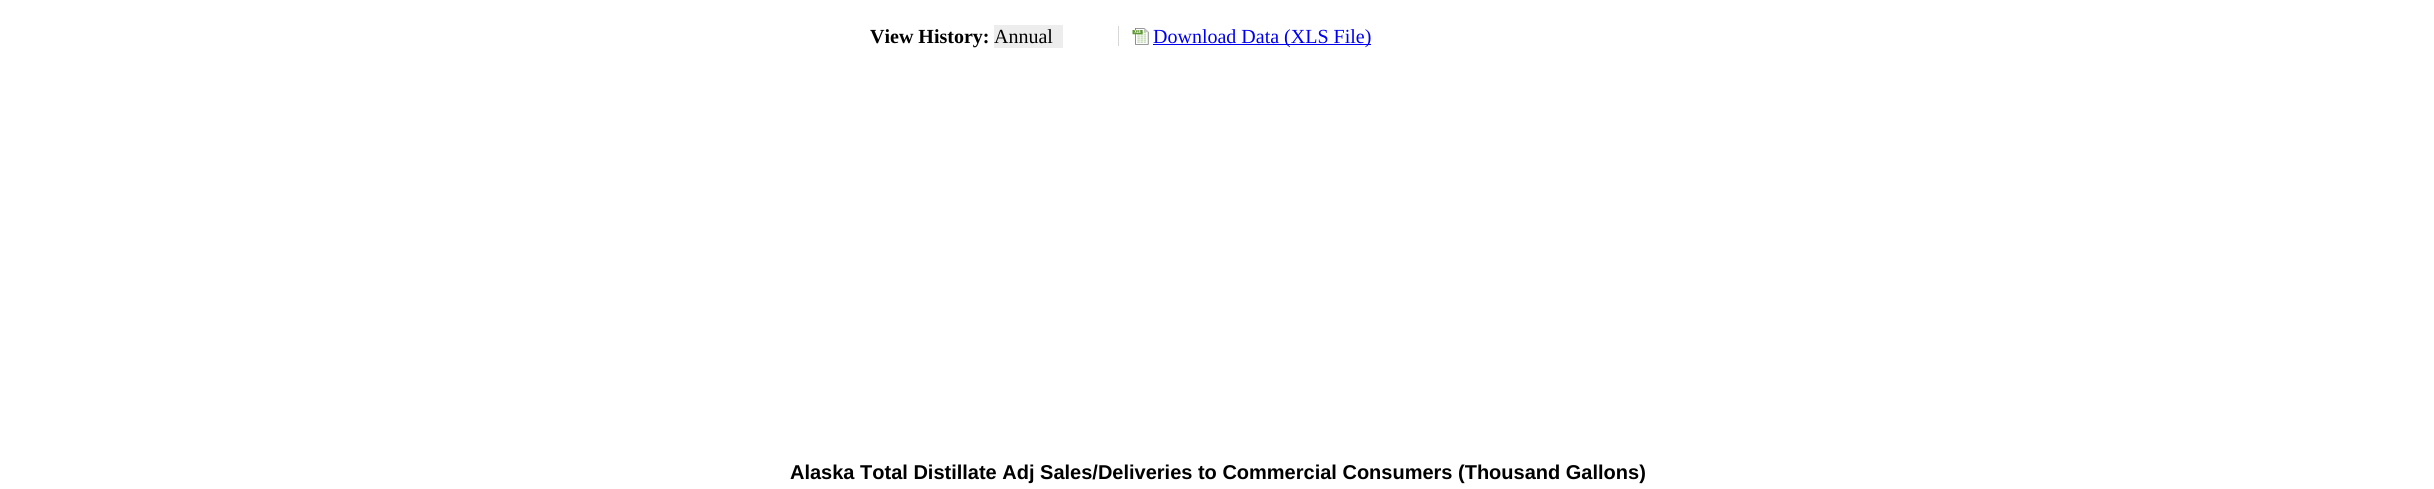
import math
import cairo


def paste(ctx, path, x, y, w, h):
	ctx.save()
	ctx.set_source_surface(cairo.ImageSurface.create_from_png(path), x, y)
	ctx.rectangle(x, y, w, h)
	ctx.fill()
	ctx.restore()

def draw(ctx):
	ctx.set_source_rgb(1, 1, 1)
	ctx.paint()
	ctx.select_font_face('Liberation Serif', cairo.FONT_SLANT_NORMAL, cairo.FONT_WEIGHT_BOLD)
	ctx.set_font_size(20)
	ctx.set_source_rgb(0, 0, 0)
	ctx.move_to(870, 43)
	ctx.show_text('View History:')
	ctx.set_source_rgb(0.929, 0.929, 0.929)
	ctx.rectangle(994, 25, 69, 23)
	ctx.fill()
	ctx.select_font_face('Liberation Serif')
	ctx.set_source_rgb(0, 0, 0)
	ctx.move_to(994, 43)
	ctx.show_text('Annual')
	ctx.set_source_rgb(0.843, 0.843, 0.843)
	ctx.rectangle(1118, 26, 1, 20)
	ctx.fill()
	paste(ctx, 'media/1.png', 1132, 28, 17, 17)
	ctx.set_source_rgb(0, 0, 0.933)
	ctx.rectangle(1153, 44, 218, 1)
	ctx.fill()
	ctx.move_to(1153, 43)
	ctx.show_text('Download Data (XLS File)')
	ctx.select_font_face('Liberation Sans', cairo.FONT_SLANT_NORMAL, cairo.FONT_WEIGHT_BOLD)
	ctx.set_source_rgb(0, 0, 0)
	ctx.move_to(790, 479)
	ctx.show_text('Alaska Total Distillate Adj Sales/Deliveries to Commercial Consumers (Thousand Gallons)')


surface = cairo.ImageSurface(cairo.FORMAT_RGB24, 2434, 489)
ctx = cairo.Context(surface)
options = cairo.FontOptions()
options.set_hint_metrics(cairo.HINT_METRICS_OFF)
options.set_hint_style(cairo.HINT_STYLE_NONE)
ctx.set_font_options(options)
ctx.set_miter_limit(4)
draw(ctx)
surface.write_to_png('image.png')
